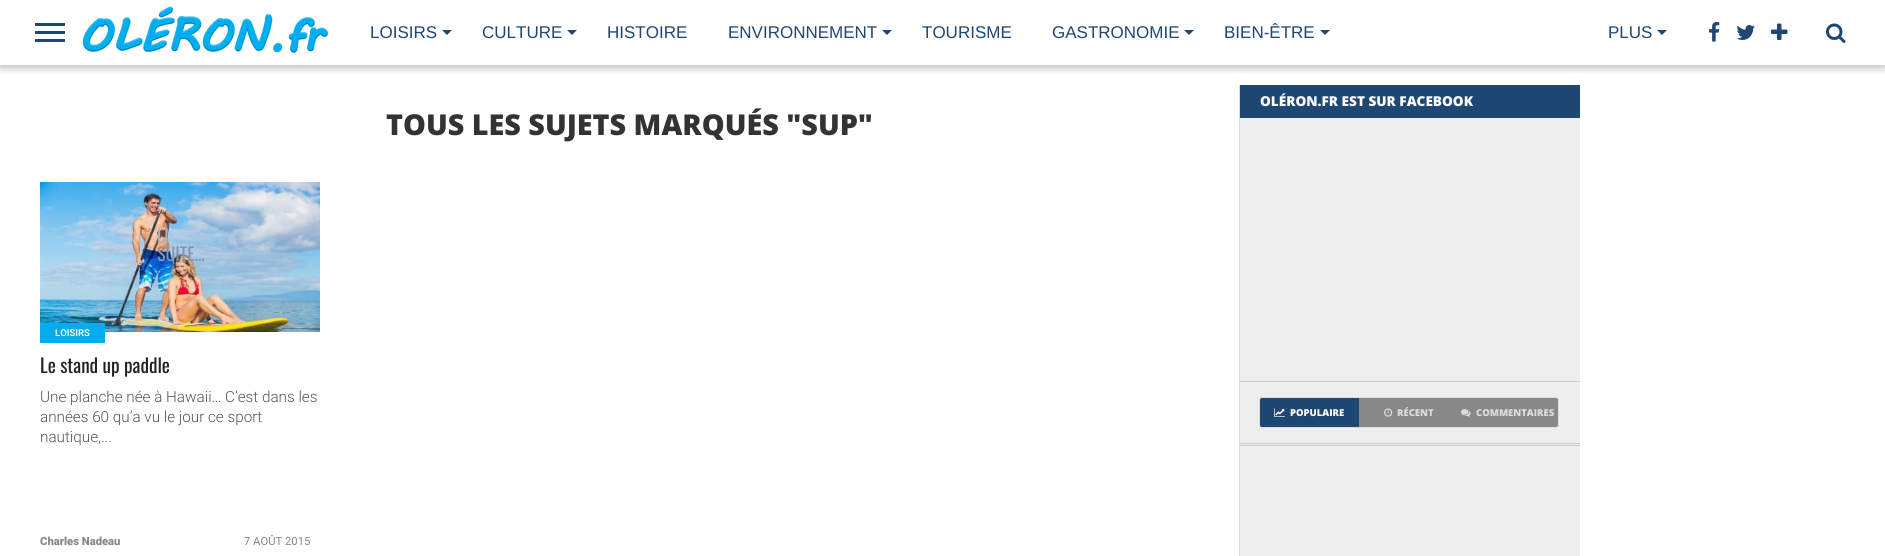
import math
import cairo


def round_path(ctx, x, y, w, h, r):
	ctx.new_sub_path()
	for i, (u, v) in enumerate([(x + w - r, y + h - r), (x + r, y + h - r), (x + r, y + r), (x + w - r, y + r)]):
		ctx.arc(u, v, r, i * math.pi / 2, (i + 1) * math.pi / 2)
	ctx.close_path()

def blur_box(ctx, x, y, w, h, r, blur, alpha):
	ctx.push_group_with_content(cairo.CONTENT_ALPHA)
	ctx.set_operator(cairo.OPERATOR_SOURCE)
	for i in range(15, -16, -2):
		e = blur * i / 6
		if min(w, h) + 2 * e > 0:
			ctx.set_source_rgba(0, 0, 0, alpha * math.erfc((i - 1) / 8.5) / 2)
			round_path(ctx, x - e, y - e, w + 2 * e, h + 2 * e, max(0, min(r + e + blur * .6, min(w, h) / 2 + e)))
			ctx.fill()
	ctx.mask(ctx.pop_group())

def paste(ctx, path, x, y, w, h):
	ctx.save()
	ctx.set_source_surface(cairo.ImageSurface.create_from_png(path), x, y)
	ctx.rectangle(x, y, w, h)
	ctx.fill()
	ctx.restore()

def draw(ctx):
	ctx.set_source_rgb(1, 1, 1)
	ctx.paint()
	ctx.save()
	ctx.rectangle(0, 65, 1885, 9)
	ctx.clip()
	ctx.set_source_rgb(0, 0, 0)
	blur_box(ctx, 0, 2, 1885, 65, 0, 5, 0.3)
	ctx.restore()
	ctx.set_source_rgb(0.122, 0.278, 0.451)
	ctx.rectangle(35, 23, 30, 3)
	ctx.rectangle(35, 31, 30, 3)
	ctx.rectangle(35, 39, 30, 3)
	ctx.fill()
	paste(ctx, 'media/1.png', 82, 6, 247, 47)
	ctx.select_font_face('Liberation Sans')
	ctx.set_font_size(17)
	ctx.move_to(370, 38)
	ctx.show_text('LOISIRS')
	ctx.new_path()
	ctx.move_to(442, 30)
	ctx.line_to(452, 30)
	ctx.line_to(447, 35)
	ctx.close_path()
	ctx.fill()
	ctx.move_to(482, 38)
	ctx.show_text('CULTURE')
	ctx.new_path()
	ctx.move_to(567, 30)
	ctx.line_to(577, 30)
	ctx.line_to(572, 35)
	ctx.close_path()
	ctx.fill()
	ctx.move_to(607, 38)
	ctx.show_text('HISTOIRE')
	ctx.move_to(728, 38)
	ctx.show_text('ENVIRONNEMENT')
	ctx.new_path()
	ctx.move_to(882, 30)
	ctx.line_to(892, 30)
	ctx.line_to(887, 35)
	ctx.close_path()
	ctx.fill()
	ctx.move_to(922, 38)
	ctx.show_text('TOURISME')
	ctx.move_to(1052, 38)
	ctx.show_text('GASTRONOMIE')
	ctx.new_path()
	ctx.move_to(1184, 30)
	ctx.line_to(1194, 30)
	ctx.line_to(1189, 35)
	ctx.close_path()
	ctx.fill()
	ctx.move_to(1224, 38)
	ctx.show_text('BIEN-ÊTRE')
	ctx.new_path()
	ctx.move_to(1320, 30)
	ctx.line_to(1330, 30)
	ctx.line_to(1325, 35)
	ctx.close_path()
	ctx.fill()
	ctx.move_to(1608, 38)
	ctx.show_text('PLUS')
	ctx.new_path()
	ctx.move_to(1657, 30)
	ctx.line_to(1667, 30)
	ctx.line_to(1662, 35)
	ctx.close_path()
	ctx.fill()
	paste(ctx, 'media/2.png', 1709, 22, 11, 20)
	paste(ctx, 'media/3.png', 1736, 25, 19, 15)
	paste(ctx, 'media/4.png', 1771, 23, 17, 17)
	paste(ctx, 'media/5.png', 1826, 23, 20, 20)
	ctx.select_font_face('Open Sans ExtraBold')
	ctx.set_font_size(28.75)
	ctx.set_source_rgb(0.2, 0.2, 0.2)
	ctx.move_to(386, 135)
	ctx.show_text('TOUS LES SUJETS MARQUÉS "SUP"')
	paste(ctx, 'media/6.png', 40, 182, 280, 150)
	ctx.select_font_face('Oswald')
	ctx.set_font_size(18)
	ctx.set_source_rgb(0.647, 0.714, 0.78)
	ctx.move_to(157, 243)
	ctx.show_text('LI')
	ctx.set_source_rgb(0.514, 0.584, 0.694)
	ctx.move_to(157, 261)
	ctx.show_text('SUITE...')
	ctx.set_source_rgb(0, 0.682, 0.937)
	ctx.rectangle(40, 323, 65, 20)
	ctx.fill()
	ctx.select_font_face('Roboto SemiBold')
	ctx.set_font_size(9.5)
	ctx.set_source_rgb(1, 1, 1)
	ctx.move_to(55, 336)
	ctx.show_text('LOISIRS')
	ctx.select_font_face('Oswald')
	ctx.set_font_size(19.25)
	ctx.set_source_rgb(0.133, 0.133, 0.133)
	ctx.move_to(40, 373)
	ctx.show_text('Le stand up paddle')
	ctx.select_font_face('Roboto Light')
	ctx.set_font_size(15.25)
	ctx.set_source_rgb(0.333, 0.333, 0.333)
	for x, y, s in [
		(40, 402, 'Une planche née à Hawaii… C’est dans les'),
		(40, 422, 'années 60 qu’a vu le jour ce sport'),
		(40, 442, 'nautique,...'),
	]:
		ctx.move_to(x, y)
		ctx.show_text(s)
	ctx.select_font_face('Roboto Black')
	ctx.set_font_size(11.25)
	ctx.set_source_rgb(0.533, 0.533, 0.533)
	ctx.move_to(40, 545)
	ctx.show_text('Charles Nadeau')
	ctx.select_font_face('Roboto')
	ctx.move_to(244, 545)
	ctx.show_text('7 AOÛT 2015')
	ctx.set_source_rgb(0.933, 0.933, 0.933)
	ctx.rectangle(1240, 118, 340, 438)
	ctx.fill()
	ctx.set_source_rgb(0.867, 0.867, 0.867)
	ctx.rectangle(1239, 85, 1, 471)
	ctx.fill()
	ctx.set_source_rgb(0.8, 0.8, 0.8)
	ctx.rectangle(1240, 381, 340, 1)
	ctx.fill()
	ctx.set_source_rgb(0.122, 0.278, 0.451)
	ctx.rectangle(1240, 85, 340, 33)
	ctx.fill()
	ctx.select_font_face('Open Sans ExtraBold')
	ctx.set_font_size(13.6)
	ctx.set_source_rgb(1, 1, 1)
	ctx.move_to(1260, 106)
	ctx.show_text('OLÉRON.FR EST SUR FACEBOOK')
	ctx.set_source_rgb(0.8, 0.8, 0.8)
	ctx.rectangle(1240, 445, 340, 1)
	ctx.fill()
	ctx.set_source_rgb(0.533, 0.533, 0.533)
	round_path(ctx, 1259.5, 397.5, 299, 30, 2.5)
	ctx.fill_preserve()
	ctx.set_source_rgb(0.867, 0.867, 0.867)
	ctx.set_line_width(1)
	ctx.stroke()
	ctx.set_source_rgb(0.122, 0.278, 0.451)
	ctx.new_path()
	ctx.move_to(1262, 398)
	ctx.line_to(1359, 398)
	ctx.line_to(1359, 427)
	ctx.line_to(1262, 427)
	ctx.curve_to(1261, 427, 1260, 426, 1260, 425)
	ctx.line_to(1260, 400)
	ctx.curve_to(1260, 399, 1261, 398, 1262, 398)
	ctx.close_path()
	ctx.fill()
	paste(ctx, 'media/7.png', 1274, 408, 11, 9)
	ctx.set_font_size(9.5)
	ctx.set_source_rgb(1, 1, 1)
	ctx.move_to(1290, 416)
	ctx.show_text('POPULAIRE')
	paste(ctx, 'media/8.png', 1384, 408, 9, 9)
	ctx.set_source_rgb(0.867, 0.867, 0.867)
	ctx.move_to(1397, 416)
	ctx.show_text('RÉCENT')
	paste(ctx, 'media/9.png', 1461, 409, 10, 8)
	ctx.move_to(1476, 416)
	ctx.show_text('COMMENTAIRES')
	ctx.set_source_rgb(0.8, 0.8, 0.8)
	ctx.rectangle(1240, 443, 340, 1)
	ctx.fill()


surface = cairo.ImageSurface(cairo.FORMAT_RGB24, 1885, 556)
ctx = cairo.Context(surface)
options = cairo.FontOptions()
options.set_hint_metrics(cairo.HINT_METRICS_OFF)
options.set_hint_style(cairo.HINT_STYLE_NONE)
ctx.set_font_options(options)
ctx.set_miter_limit(4)
draw(ctx)
surface.write_to_png('image.png')
